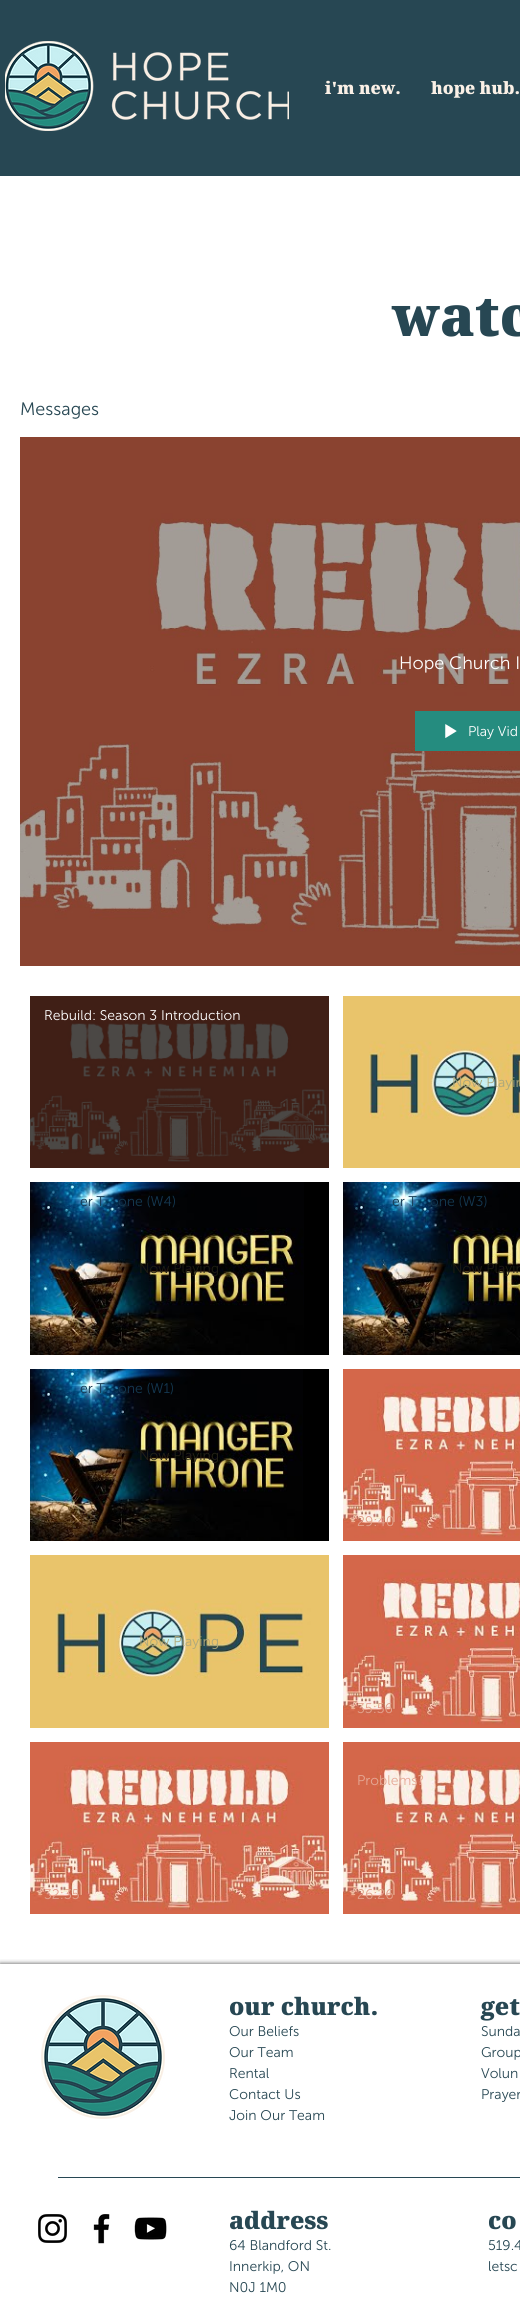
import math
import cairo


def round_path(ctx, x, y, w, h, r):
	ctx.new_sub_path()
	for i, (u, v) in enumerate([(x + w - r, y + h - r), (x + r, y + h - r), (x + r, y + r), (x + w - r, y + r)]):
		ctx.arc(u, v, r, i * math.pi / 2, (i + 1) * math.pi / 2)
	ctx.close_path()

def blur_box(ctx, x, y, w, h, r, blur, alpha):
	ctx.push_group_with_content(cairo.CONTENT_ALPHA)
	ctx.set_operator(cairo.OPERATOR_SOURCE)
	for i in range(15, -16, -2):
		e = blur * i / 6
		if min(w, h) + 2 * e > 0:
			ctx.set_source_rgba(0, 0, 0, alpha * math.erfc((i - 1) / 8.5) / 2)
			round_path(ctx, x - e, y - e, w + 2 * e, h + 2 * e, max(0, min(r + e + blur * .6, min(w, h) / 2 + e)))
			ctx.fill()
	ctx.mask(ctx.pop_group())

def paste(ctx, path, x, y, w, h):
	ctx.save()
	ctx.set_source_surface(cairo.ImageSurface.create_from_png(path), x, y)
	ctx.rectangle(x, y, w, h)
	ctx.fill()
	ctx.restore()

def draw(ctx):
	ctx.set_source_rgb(1, 1, 1)
	ctx.paint()
	ctx.set_source_rgb(0.153, 0.278, 0.325)
	ctx.rectangle(0, 0, 520, 176)
	ctx.fill()
	paste(ctx, 'media/1.png', 5, 41, 284, 90)
	ctx.select_font_face('Noto Serif Black')
	ctx.set_font_size(17)
	ctx.set_source_rgb(0.98, 0.941, 0.902)
	ctx.move_to(325, 94)
	ctx.show_text('i\'m new.')
	ctx.move_to(431, 94)
	ctx.show_text('hope hub.')
	ctx.set_font_size(56)
	ctx.set_source_rgb(0.153, 0.278, 0.325)
	ctx.move_to(392, 336)
	ctx.show_text('watc')
	ctx.select_font_face('Museo Sans Light')
	ctx.set_font_size(18)
	ctx.move_to(20, 415)
	ctx.show_text('Messages')
	paste(ctx, 'media/2.png', 20, 437, 500, 529)
	paste(ctx, 'media/3.png', 20, 522, 500, 424)
	ctx.set_source_rgb(1, 1, 1)
	ctx.move_to(399, 669)
	ctx.show_text('Hope Church I')
	ctx.set_source_rgb(0.145, 0.549, 0.498)
	ctx.rectangle(415, 711, 105, 40)
	ctx.fill()
	paste(ctx, 'media/4.png', 445, 724, 12, 14)
	ctx.set_font_size(14)
	ctx.set_source_rgb(1, 1, 1)
	ctx.move_to(468, 736)
	ctx.show_text('Play Vid')
	paste(ctx, 'media/5.png', 30, 996, 299, 172)
	paste(ctx, 'media/6.png', 30, 1011, 299, 153)
	ctx.move_to(44, 1020)
	ctx.show_text('Rebuild: Season 3 Introduction')
	ctx.set_source_rgb(0.271, 0.204, 0.18)
	ctx.move_to(60, 1153)
	ctx.show_text(':')
	paste(ctx, 'media/7.png', 343, 996, 177, 172)
	paste(ctx, 'media/8.png', 369, 1052, 151, 63)
	ctx.set_source_rgb(0.663, 0.655, 0.49)
	ctx.move_to(452, 1087)
	ctx.show_text('Now Playin')
	ctx.set_source_rgb(0, 0, 0)
	ctx.rectangle(304, 1182, 25, 173)
	ctx.fill()
	paste(ctx, 'media/9.png', 294, 1182, 10, 173)
	paste(ctx, 'media/10.png', 30, 1182, 264, 173)
	ctx.set_source_rgb(0.082, 0.22, 0.318)
	ctx.move_to(80, 1206)
	ctx.show_text('er T')
	ctx.move_to(118, 1206)
	ctx.show_text('one (W4)')
	ctx.set_source_rgb(0.118, 0.11, 0.078)
	ctx.move_to(139, 1273)
	ctx.show_text('Now Playing')
	paste(ctx, 'media/11.png', 343, 1182, 177, 173)
	ctx.set_source_rgb(0.082, 0.22, 0.318)
	ctx.move_to(392, 1206)
	ctx.show_text('er T')
	ctx.move_to(430, 1206)
	ctx.show_text('one (W3)')
	ctx.set_source_rgb(0.118, 0.11, 0.078)
	ctx.move_to(452, 1273)
	ctx.show_text('Now Playin')
	ctx.set_source_rgb(0, 0, 0)
	ctx.rectangle(303, 1369, 26, 172)
	ctx.fill()
	paste(ctx, 'media/12.png', 294, 1369, 9, 172)
	paste(ctx, 'media/13.png', 30, 1369, 264, 172)
	ctx.set_source_rgb(0.082, 0.22, 0.318)
	ctx.move_to(80, 1393)
	ctx.show_text('er T')
	ctx.move_to(118, 1393)
	ctx.show_text('one (W1)')
	ctx.set_source_rgb(0.141, 0.129, 0.09)
	ctx.move_to(139, 1460)
	ctx.show_text('Now Playing')
	paste(ctx, 'media/14.png', 343, 1369, 177, 172)
	paste(ctx, 'media/15.png', 343, 1396, 177, 133)
	ctx.set_source_rgb(0.886, 0.635, 0.553)
	ctx.move_to(357, 1526)
	ctx.show_text('29:40')
	paste(ctx, 'media/16.png', 30, 1555, 299, 173)
	paste(ctx, 'media/17.png', 56, 1610, 248, 68)
	ctx.set_source_rgb(0.686, 0.663, 0.478)
	ctx.move_to(139, 1646)
	ctx.show_text('Now Playing')
	paste(ctx, 'media/18.png', 343, 1555, 177, 173)
	paste(ctx, 'media/19.png', 343, 1580, 177, 143)
	ctx.set_source_rgb(0.886, 0.635, 0.553)
	ctx.move_to(357, 1713)
	ctx.show_text('35:56')
	paste(ctx, 'media/20.png', 30, 1742, 299, 172)
	paste(ctx, 'media/21.png', 30, 1767, 299, 135)
	ctx.move_to(44, 1899)
	ctx.show_text('32:35')
	paste(ctx, 'media/14.png', 343, 1742, 177, 172)
	paste(ctx, 'media/15.png', 343, 1769, 177, 133)
	ctx.set_source_rgb(0.898, 0.663, 0.588)
	ctx.move_to(357, 1785)
	ctx.show_text('Problems?')
	ctx.set_source_rgb(0.886, 0.635, 0.553)
	ctx.move_to(357, 1899)
	ctx.show_text('26:26')
	ctx.save()
	ctx.rectangle(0, 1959, 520, 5)
	ctx.clip()
	ctx.set_source_rgb(0, 0, 0)
	blur_box(ctx, 0, 1964, 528, 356, 0, 2.5, 0.7)
	ctx.restore()
	paste(ctx, 'media/22.png', 41, 1995, 124, 124)
	ctx.select_font_face('Noto Serif Black')
	ctx.set_font_size(24)
	ctx.set_source_rgb(0.153, 0.278, 0.325)
	ctx.move_to(229, 2015)
	ctx.show_text('our church.')
	ctx.select_font_face('Museo Sans Light')
	ctx.set_font_size(14)
	for x, y, s in [
		(229, 2036, 'Our Beliefs'),
		(229, 2057, 'Our Team'),
		(229, 2078, 'Rental'),
		(229, 2099, 'Contact Us'),
		(229, 2120, 'Join Our Team'),
	]:
		ctx.move_to(x, y)
		ctx.show_text(s)
	ctx.select_font_face('Noto Serif Black')
	ctx.set_font_size(24)
	ctx.move_to(481, 2015)
	ctx.show_text('get')
	ctx.select_font_face('Museo Sans Light')
	ctx.set_font_size(14)
	for x, y, s in [
		(481, 2036, 'Sunda'),
		(481, 2057, 'Group'),
		(481, 2078, 'Volun'),
		(481, 2099, 'Prayer'),
	]:
		ctx.move_to(x, y)
		ctx.show_text(s)
	ctx.rectangle(58, 2177, 462, 1)
	ctx.fill()
	paste(ctx, 'media/23.png', 38, 2214, 29, 29)
	paste(ctx, 'media/24.png', 93, 2214, 17, 30)
	paste(ctx, 'media/25.png', 134, 2217, 33, 23)
	ctx.select_font_face('Noto Serif Black')
	ctx.set_font_size(24)
	ctx.move_to(229, 2229)
	ctx.show_text('address')
	ctx.select_font_face('Museo Sans Light')
	ctx.set_font_size(14)
	for x, y, s in [
		(229, 2250, '64 Blandford St.'),
		(229, 2271, 'Innerkip, ON'),
		(229, 2292, 'N0J 1M0'),
	]:
		ctx.move_to(x, y)
		ctx.show_text(s)
	ctx.select_font_face('Noto Serif Black')
	ctx.set_font_size(24)
	ctx.move_to(488, 2229)
	ctx.show_text('co')
	ctx.select_font_face('Museo Sans Light')
	ctx.set_font_size(14)
	ctx.move_to(488, 2250)
	ctx.show_text('519.4')
	ctx.move_to(488, 2271)
	ctx.show_text('letsc')


surface = cairo.ImageSurface(cairo.FORMAT_RGB24, 520, 2315)
ctx = cairo.Context(surface)
options = cairo.FontOptions()
options.set_hint_metrics(cairo.HINT_METRICS_OFF)
options.set_hint_style(cairo.HINT_STYLE_NONE)
ctx.set_font_options(options)
ctx.set_miter_limit(4)
draw(ctx)
surface.write_to_png('image.png')
